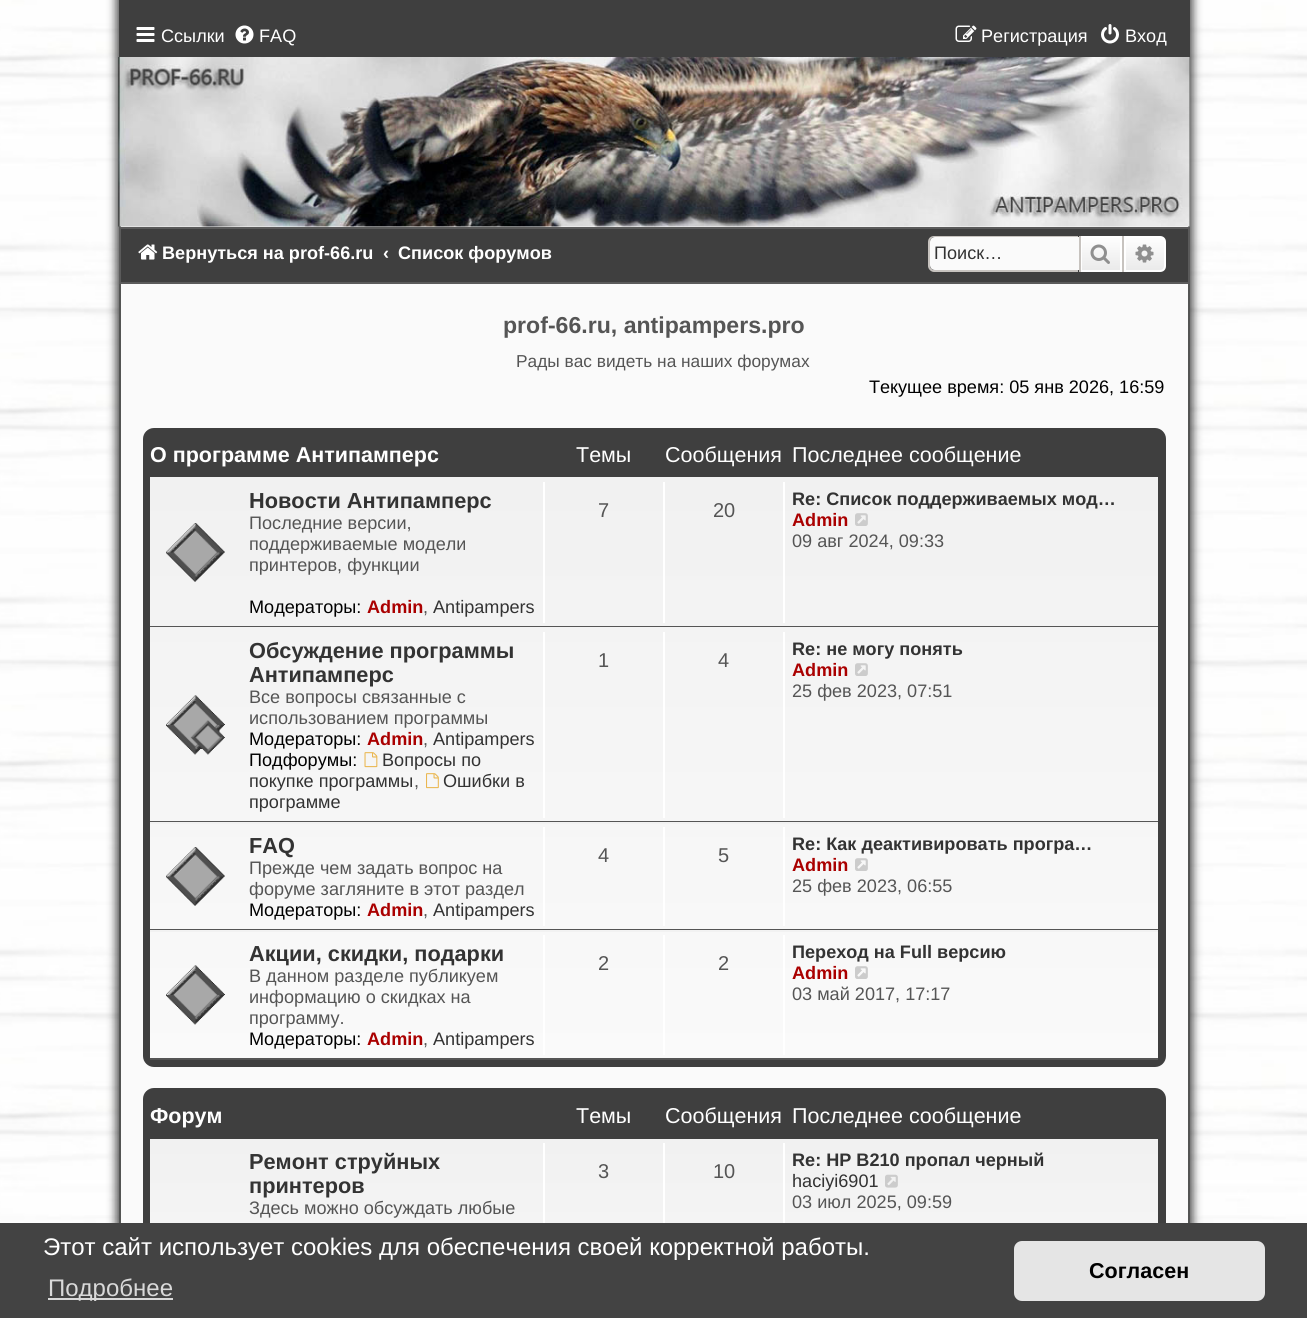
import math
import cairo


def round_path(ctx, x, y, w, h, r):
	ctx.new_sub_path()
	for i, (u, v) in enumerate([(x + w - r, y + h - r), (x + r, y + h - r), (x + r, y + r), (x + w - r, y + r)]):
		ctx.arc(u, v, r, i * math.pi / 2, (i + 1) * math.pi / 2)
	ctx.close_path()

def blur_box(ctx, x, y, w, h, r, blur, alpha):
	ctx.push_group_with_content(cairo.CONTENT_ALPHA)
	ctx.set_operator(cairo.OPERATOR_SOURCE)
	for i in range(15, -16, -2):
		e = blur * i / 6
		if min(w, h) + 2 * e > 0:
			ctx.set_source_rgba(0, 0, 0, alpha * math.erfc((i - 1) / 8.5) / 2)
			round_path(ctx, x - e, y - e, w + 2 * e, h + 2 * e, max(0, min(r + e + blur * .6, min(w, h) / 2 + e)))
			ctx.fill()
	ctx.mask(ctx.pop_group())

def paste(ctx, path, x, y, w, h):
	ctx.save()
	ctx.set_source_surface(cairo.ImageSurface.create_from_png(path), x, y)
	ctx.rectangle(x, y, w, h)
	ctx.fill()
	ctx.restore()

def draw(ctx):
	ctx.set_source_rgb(1, 1, 1)
	ctx.paint()
	paste(ctx, 'media/1.png', 0, 0, 1307, 1223)
	ctx.set_source_rgb(0.008, 0.008, 0.008)
	blur_box(ctx, 116, -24, 1077, 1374, 18, 4.5, 0.7)
	ctx.set_source_rgb(0.98, 0.98, 0.98)
	ctx.rectangle(121, 226, 1067, 997)
	ctx.fill()
	ctx.rectangle(120, -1, 1069, 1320)
	ctx.set_source_rgb(0.325, 0.329, 0.325)
	ctx.stroke()
	ctx.set_source_rgb(0.247, 0.247, 0.247)
	ctx.rectangle(119, 0, 1071, 57)
	ctx.fill()
	ctx.set_source_rgb(0.357, 0.357, 0.357)
	ctx.rectangle(1189, 57, 1, 2)
	ctx.fill()
	paste(ctx, 'media/2.png', 136, 27, 19, 15)
	ctx.select_font_face('Liberation Sans')
	ctx.set_font_size(18.1)
	ctx.set_source_rgb(1, 1, 1)
	ctx.move_to(161, 42)
	ctx.show_text('Ссылки')
	paste(ctx, 'media/3.png', 235, 25, 19, 19)
	ctx.move_to(259, 42)
	ctx.show_text('FAQ')
	paste(ctx, 'media/4.png', 955, 25, 22, 17)
	ctx.move_to(981, 42)
	ctx.show_text('Регистрация')
	paste(ctx, 'media/5.png', 1101, 24, 18, 20)
	ctx.move_to(1125, 42)
	ctx.show_text('Вход')
	paste(ctx, 'media/6.png', 118, 57, 1072, 170)
	ctx.set_source_rgb(0.247, 0.247, 0.247)
	ctx.rectangle(120, 228, 1069, 55)
	ctx.fill_preserve()
	ctx.set_source_rgb(0.357, 0.357, 0.357)
	ctx.stroke()
	paste(ctx, 'media/7.png', 138, 244, 20, 16)
	ctx.select_font_face('Liberation Sans', cairo.FONT_SLANT_NORMAL, cairo.FONT_WEIGHT_BOLD)
	ctx.set_source_rgb(1, 1, 1)
	for x, y, s in [
		(162, 259, 'Вернуться на prof-66.ru'),
		(383, 259, '‹'),
		(398, 259, 'Список форумов'),
	]:
		ctx.move_to(x, y)
		ctx.show_text(s)
	ctx.set_source_rgb(0.98, 0.98, 0.98)
	ctx.new_path()
	ctx.move_to(935, 237)
	ctx.line_to(1079, 237)
	ctx.line_to(1079, 270)
	ctx.line_to(935, 270)
	ctx.curve_to(932, 270, 930, 268, 930, 265)
	ctx.line_to(930, 242)
	ctx.curve_to(930, 239, 932, 237, 935, 237)
	ctx.close_path()
	ctx.fill()
	ctx.set_source_rgb(0.78, 0.765, 0.749)
	ctx.set_fill_rule(cairo.FILL_RULE_EVEN_ODD)
	ctx.new_path()
	ctx.move_to(934, 236)
	ctx.line_to(1078, 236)
	ctx.line_to(1078, 272)
	ctx.line_to(934, 272)
	ctx.curve_to(931, 272, 928, 269, 928, 266)
	ctx.line_to(928, 242)
	ctx.curve_to(928, 238, 931, 236, 934, 236)
	ctx.close_path()
	ctx.move_to(934, 237)
	ctx.line_to(1078, 237)
	ctx.line_to(1078, 270)
	ctx.line_to(934, 270)
	ctx.curve_to(932, 270, 930, 268, 930, 266)
	ctx.line_to(930, 242)
	ctx.curve_to(930, 239, 932, 237, 934, 237)
	ctx.close_path()
	ctx.fill()
	ctx.select_font_face('Liberation Sans')
	ctx.set_source_rgb(0.2, 0.2, 0.2)
	ctx.move_to(934, 259)
	ctx.show_text('Поиск…')
	gradient = cairo.LinearGradient(1101, 236, 1101, 272)
	gradient.add_color_stop_rgba(0, 1, 1, 1, 1)
	gradient.add_color_stop_rgba(1, 0.914, 0.914, 0.914, 1)
	ctx.set_source(gradient)
	ctx.rectangle(1082, 238, 38, 32)
	ctx.fill()
	ctx.rectangle(1081, 237, 40, 34)
	ctx.set_source_rgb(1, 1, 1)
	ctx.stroke()
	ctx.set_source_rgb(0.78, 0.765, 0.749)
	ctx.rectangle(1122, 236, 2, 36)
	ctx.fill()
	ctx.rectangle(1079, 236, 2, 36)
	ctx.fill()
	paste(ctx, 'media/8.png', 1090, 244, 20, 20)
	gradient = cairo.LinearGradient(1145, 236, 1145, 272)
	gradient.add_color_stop_rgba(0, 1, 1, 1, 1)
	gradient.add_color_stop_rgba(1, 0.914, 0.914, 0.914, 1)
	ctx.set_source(gradient)
	ctx.new_path()
	ctx.move_to(1125, 237)
	ctx.line_to(1160, 237)
	ctx.curve_to(1163, 237, 1165, 239, 1165, 242)
	ctx.line_to(1165, 266)
	ctx.curve_to(1165, 269, 1163, 271, 1160, 271)
	ctx.line_to(1125, 271)
	ctx.close_path()
	ctx.fill_preserve()
	ctx.set_source_rgb(1, 1, 1)
	ctx.stroke()
	paste(ctx, 'media/9.png', 1135, 244, 19, 19)
	ctx.select_font_face('Liberation Sans', cairo.FONT_SLANT_NORMAL, cairo.FONT_WEIGHT_BOLD)
	ctx.set_font_size(23.1)
	ctx.set_source_rgb(0.333, 0.333, 0.333)
	ctx.move_to(503, 333)
	ctx.show_text('prof-66.ru, antipampers.pro')
	ctx.select_font_face('Liberation Sans')
	ctx.set_font_size(17.3)
	ctx.move_to(516, 367)
	ctx.show_text('Рады вас видеть на наших форумах')
	ctx.set_font_size(18.1)
	ctx.set_source_rgb(0, 0, 0)
	ctx.move_to(869, 393)
	ctx.show_text('Текущее время: 05 янв 2026, 16:59')
	ctx.set_source_rgb(0.247, 0.247, 0.247)
	round_path(ctx, 143, 428, 1023, 639, 11)
	ctx.fill()
	ctx.select_font_face('Liberation Sans', cairo.FONT_SLANT_NORMAL, cairo.FONT_WEIGHT_BOLD)
	ctx.set_font_size(21.5)
	ctx.set_source_rgb(1, 1, 1)
	ctx.move_to(150, 462)
	ctx.show_text('О программе Антипамперс')
	ctx.select_font_face('Liberation Sans')
	for x, y, s in [
		(576, 462, 'Темы'),
		(665, 462, 'Сообщения'),
		(792, 462, 'Последнее сообщение'),
	]:
		ctx.move_to(x, y)
		ctx.show_text(s)
	gradient = cairo.LinearGradient(654, 477, 654, 1059)
	gradient.add_color_stop_rgba(0, 0.945, 0.945, 0.945, 1)
	gradient.add_color_stop_rgba(1, 0.98, 0.98, 0.98, 1)
	ctx.set_source(gradient)
	ctx.rectangle(150, 477, 1008, 581)
	ctx.fill()
	ctx.set_source_rgb(0.333, 0.333, 0.333)
	ctx.rectangle(150, 626, 1008, 1)
	ctx.fill()
	paste(ctx, 'media/10.png', 166, 523, 59, 59)
	ctx.select_font_face('Liberation Sans', cairo.FONT_SLANT_NORMAL, cairo.FONT_WEIGHT_BOLD)
	ctx.set_font_size(21.75)
	ctx.set_source_rgb(0.2, 0.2, 0.2)
	ctx.move_to(249, 508)
	ctx.show_text('Новости Антипамперс')
	ctx.select_font_face('Liberation Sans')
	ctx.set_font_size(18.1)
	ctx.set_source_rgb(0.333, 0.333, 0.333)
	for x, y, s in [
		(249, 529, 'Последние версии,'),
		(249, 550, 'поддерживаемые модели'),
		(249, 571, 'принтеров, функции'),
	]:
		ctx.move_to(x, y)
		ctx.show_text(s)
	ctx.set_source_rgb(0, 0, 0)
	ctx.move_to(249, 613)
	ctx.show_text('Модераторы:')
	ctx.select_font_face('Liberation Sans', cairo.FONT_SLANT_NORMAL, cairo.FONT_WEIGHT_BOLD)
	ctx.set_source_rgb(0.667, 0, 0)
	ctx.move_to(367, 613)
	ctx.show_text('Admin')
	ctx.select_font_face('Liberation Sans')
	ctx.set_source_rgb(0.333, 0.333, 0.333)
	ctx.move_to(423, 613)
	ctx.show_text(',')
	ctx.set_source_rgb(0.2, 0.2, 0.2)
	ctx.move_to(433, 613)
	ctx.show_text('Antipampers')
	ctx.set_source_rgb(1, 1, 1)
	ctx.rectangle(543, 482, 2, 141)
	ctx.fill()
	ctx.set_font_size(20)
	ctx.set_source_rgb(0.333, 0.333, 0.333)
	ctx.move_to(598, 517)
	ctx.show_text('7')
	ctx.set_source_rgb(1, 1, 1)
	ctx.rectangle(663, 482, 2, 141)
	ctx.fill()
	ctx.set_source_rgb(0.333, 0.333, 0.333)
	ctx.move_to(713, 517)
	ctx.show_text('20')
	ctx.set_source_rgb(1, 1, 1)
	ctx.rectangle(783, 482, 2, 141)
	ctx.fill()
	ctx.select_font_face('Liberation Sans', cairo.FONT_SLANT_NORMAL, cairo.FONT_WEIGHT_BOLD)
	ctx.set_font_size(18.1)
	ctx.set_source_rgb(0.2, 0.2, 0.2)
	ctx.move_to(792, 505)
	ctx.show_text('Re: Список поддерживаемых мод…')
	ctx.set_source_rgb(0.667, 0, 0)
	ctx.move_to(792, 526)
	ctx.show_text('Admin')
	paste(ctx, 'media/11.png', 855, 513, 13, 13)
	ctx.select_font_face('Liberation Sans')
	ctx.set_source_rgb(0.333, 0.333, 0.333)
	ctx.move_to(792, 547)
	ctx.show_text('09 авг 2024, 09:33')
	ctx.rectangle(150, 821, 1008, 1)
	ctx.fill()
	paste(ctx, 'media/12.png', 166, 695, 59, 60)
	ctx.select_font_face('Liberation Sans', cairo.FONT_SLANT_NORMAL, cairo.FONT_WEIGHT_BOLD)
	ctx.set_font_size(21.75)
	ctx.set_source_rgb(0.2, 0.2, 0.2)
	ctx.move_to(249, 658)
	ctx.show_text('Обсуждение программы')
	ctx.move_to(249, 682)
	ctx.show_text('Антипамперс')
	ctx.select_font_face('Liberation Sans')
	ctx.set_font_size(18.1)
	ctx.set_source_rgb(0.333, 0.333, 0.333)
	ctx.move_to(249, 703)
	ctx.show_text('Все вопросы связанные с')
	ctx.move_to(249, 724)
	ctx.show_text('использованием программы')
	ctx.set_source_rgb(0, 0, 0)
	ctx.move_to(249, 745)
	ctx.show_text('Модераторы:')
	ctx.select_font_face('Liberation Sans', cairo.FONT_SLANT_NORMAL, cairo.FONT_WEIGHT_BOLD)
	ctx.set_source_rgb(0.667, 0, 0)
	ctx.move_to(367, 745)
	ctx.show_text('Admin')
	ctx.select_font_face('Liberation Sans')
	ctx.set_source_rgb(0.333, 0.333, 0.333)
	ctx.move_to(423, 745)
	ctx.show_text(',')
	ctx.set_source_rgb(0.2, 0.2, 0.2)
	ctx.move_to(433, 745)
	ctx.show_text('Antipampers')
	ctx.set_source_rgb(0, 0, 0)
	ctx.move_to(249, 766)
	ctx.show_text('Подфорумы:')
	paste(ctx, 'media/13.png', 364, 752, 14, 16)
	ctx.set_source_rgb(0.2, 0.2, 0.2)
	ctx.move_to(382, 766)
	ctx.show_text('Вопросы по')
	ctx.move_to(249, 787)
	ctx.show_text('покупке программы')
	paste(ctx, 'media/14.png', 426, 773, 13, 16)
	ctx.move_to(443, 787)
	ctx.show_text('Ошибки в')
	ctx.move_to(249, 808)
	ctx.show_text('программе')
	ctx.set_source_rgb(0.333, 0.333, 0.333)
	ctx.move_to(414, 787)
	ctx.show_text(',')
	ctx.set_source_rgb(1, 1, 1)
	ctx.rectangle(543, 632, 2, 186)
	ctx.fill()
	ctx.set_font_size(20)
	ctx.set_source_rgb(0.333, 0.333, 0.333)
	ctx.move_to(598, 667)
	ctx.show_text('1')
	ctx.set_source_rgb(1, 1, 1)
	ctx.rectangle(663, 632, 2, 186)
	ctx.fill()
	ctx.set_source_rgb(0.333, 0.333, 0.333)
	ctx.move_to(718, 667)
	ctx.show_text('4')
	ctx.set_source_rgb(1, 1, 1)
	ctx.rectangle(783, 632, 2, 186)
	ctx.fill()
	ctx.select_font_face('Liberation Sans', cairo.FONT_SLANT_NORMAL, cairo.FONT_WEIGHT_BOLD)
	ctx.set_font_size(18.1)
	ctx.set_source_rgb(0.2, 0.2, 0.2)
	ctx.move_to(792, 655)
	ctx.show_text('Re: не могу понять')
	ctx.set_source_rgb(0.667, 0, 0)
	ctx.move_to(792, 676)
	ctx.show_text('Admin')
	paste(ctx, 'media/15.png', 855, 663, 13, 13)
	ctx.select_font_face('Liberation Sans')
	ctx.set_source_rgb(0.333, 0.333, 0.333)
	ctx.move_to(792, 697)
	ctx.show_text('25 фев 2023, 07:51')
	ctx.set_source_rgb(0.949, 0.949, 0.949)
	ctx.rectangle(150, 822, 1008, 2)
	ctx.fill()
	ctx.set_source_rgb(0.333, 0.333, 0.333)
	ctx.rectangle(150, 929, 1008, 1)
	ctx.fill()
	paste(ctx, 'media/16.png', 166, 847, 59, 59)
	ctx.select_font_face('Liberation Sans', cairo.FONT_SLANT_NORMAL, cairo.FONT_WEIGHT_BOLD)
	ctx.set_font_size(21.75)
	ctx.set_source_rgb(0.2, 0.2, 0.2)
	ctx.move_to(249, 853)
	ctx.show_text('FAQ')
	ctx.select_font_face('Liberation Sans')
	ctx.set_font_size(18.1)
	ctx.set_source_rgb(0.333, 0.333, 0.333)
	ctx.move_to(249, 874)
	ctx.show_text('Прежде чем задать вопрос на')
	ctx.move_to(249, 895)
	ctx.show_text('форуме загляните в этот раздел')
	ctx.set_source_rgb(0, 0, 0)
	ctx.move_to(249, 916)
	ctx.show_text('Модераторы:')
	ctx.select_font_face('Liberation Sans', cairo.FONT_SLANT_NORMAL, cairo.FONT_WEIGHT_BOLD)
	ctx.set_source_rgb(0.667, 0, 0)
	ctx.move_to(367, 916)
	ctx.show_text('Admin')
	ctx.select_font_face('Liberation Sans')
	ctx.set_source_rgb(0.333, 0.333, 0.333)
	ctx.move_to(423, 916)
	ctx.show_text(',')
	ctx.set_source_rgb(0.2, 0.2, 0.2)
	ctx.move_to(433, 916)
	ctx.show_text('Antipampers')
	ctx.set_source_rgb(1, 1, 1)
	ctx.rectangle(543, 827, 2, 99)
	ctx.fill()
	ctx.set_font_size(20)
	ctx.set_source_rgb(0.333, 0.333, 0.333)
	ctx.move_to(598, 862)
	ctx.show_text('4')
	ctx.set_source_rgb(1, 1, 1)
	ctx.rectangle(663, 827, 2, 99)
	ctx.fill()
	ctx.set_source_rgb(0.333, 0.333, 0.333)
	ctx.move_to(718, 862)
	ctx.show_text('5')
	ctx.set_source_rgb(1, 1, 1)
	ctx.rectangle(783, 827, 2, 99)
	ctx.fill()
	ctx.select_font_face('Liberation Sans', cairo.FONT_SLANT_NORMAL, cairo.FONT_WEIGHT_BOLD)
	ctx.set_font_size(18.1)
	ctx.set_source_rgb(0.2, 0.2, 0.2)
	ctx.move_to(792, 850)
	ctx.show_text('Re: Как деактивировать програ…')
	ctx.set_source_rgb(0.667, 0, 0)
	ctx.move_to(792, 871)
	ctx.show_text('Admin')
	paste(ctx, 'media/17.png', 855, 858, 13, 13)
	ctx.select_font_face('Liberation Sans')
	ctx.set_source_rgb(0.333, 0.333, 0.333)
	ctx.move_to(792, 892)
	ctx.show_text('25 фев 2023, 06:55')
	ctx.set_source_rgb(0.949, 0.949, 0.949)
	ctx.rectangle(150, 930, 1008, 2)
	ctx.fill()
	ctx.set_source_rgb(0.333, 0.333, 0.333)
	ctx.rectangle(150, 1058, 1008, 2)
	ctx.fill()
	paste(ctx, 'media/18.png', 166, 965, 59, 60)
	ctx.select_font_face('Liberation Sans', cairo.FONT_SLANT_NORMAL, cairo.FONT_WEIGHT_BOLD)
	ctx.set_font_size(21.75)
	ctx.set_source_rgb(0.2, 0.2, 0.2)
	ctx.move_to(249, 961)
	ctx.show_text('Акции, скидки, подарки')
	ctx.select_font_face('Liberation Sans')
	ctx.set_font_size(18.1)
	ctx.set_source_rgb(0.333, 0.333, 0.333)
	for x, y, s in [
		(249, 982, 'В данном разделе публикуем'),
		(249, 1003, 'информацию о скидках на'),
		(249, 1024, 'программу.'),
	]:
		ctx.move_to(x, y)
		ctx.show_text(s)
	ctx.set_source_rgb(0, 0, 0)
	ctx.move_to(249, 1045)
	ctx.show_text('Модераторы:')
	ctx.select_font_face('Liberation Sans', cairo.FONT_SLANT_NORMAL, cairo.FONT_WEIGHT_BOLD)
	ctx.set_source_rgb(0.667, 0, 0)
	ctx.move_to(367, 1045)
	ctx.show_text('Admin')
	ctx.select_font_face('Liberation Sans')
	ctx.set_source_rgb(0.333, 0.333, 0.333)
	ctx.move_to(423, 1045)
	ctx.show_text(',')
	ctx.set_source_rgb(0.2, 0.2, 0.2)
	ctx.move_to(433, 1045)
	ctx.show_text('Antipampers')
	ctx.set_source_rgb(1, 1, 1)
	ctx.rectangle(543, 935, 2, 120)
	ctx.fill()
	ctx.set_font_size(20)
	ctx.set_source_rgb(0.333, 0.333, 0.333)
	ctx.move_to(598, 970)
	ctx.show_text('2')
	ctx.set_source_rgb(1, 1, 1)
	ctx.rectangle(663, 935, 2, 120)
	ctx.fill()
	ctx.set_source_rgb(0.333, 0.333, 0.333)
	ctx.move_to(718, 970)
	ctx.show_text('2')
	ctx.set_source_rgb(1, 1, 1)
	ctx.rectangle(783, 935, 2, 120)
	ctx.fill()
	ctx.select_font_face('Liberation Sans', cairo.FONT_SLANT_NORMAL, cairo.FONT_WEIGHT_BOLD)
	ctx.set_font_size(18.1)
	ctx.set_source_rgb(0.2, 0.2, 0.2)
	ctx.move_to(792, 958)
	ctx.show_text('Переход на Full версию')
	ctx.set_source_rgb(0.667, 0, 0)
	ctx.move_to(792, 979)
	ctx.show_text('Admin')
	paste(ctx, 'media/19.png', 855, 966, 13, 13)
	ctx.select_font_face('Liberation Sans')
	ctx.set_source_rgb(0.333, 0.333, 0.333)
	ctx.move_to(792, 1000)
	ctx.show_text('03 май 2017, 17:17')
	ctx.set_source_rgb(0.247, 0.247, 0.247)
	round_path(ctx, 143, 1088, 1023, 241, 11)
	ctx.fill()
	ctx.select_font_face('Liberation Sans', cairo.FONT_SLANT_NORMAL, cairo.FONT_WEIGHT_BOLD)
	ctx.set_font_size(21.5)
	ctx.set_source_rgb(1, 1, 1)
	ctx.move_to(150, 1123)
	ctx.show_text('Форум')
	ctx.select_font_face('Liberation Sans')
	for x, y, s in [
		(576, 1123, 'Темы'),
		(665, 1123, 'Сообщения'),
		(792, 1123, 'Последнее сообщение'),
	]:
		ctx.move_to(x, y)
		ctx.show_text(s)
	gradient = cairo.LinearGradient(654, 1139, 654, 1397)
	gradient.add_color_stop_rgba(0, 0.945, 0.945, 0.945, 1)
	gradient.add_color_stop_rgba(1, 0.98, 0.98, 0.98, 1)
	ctx.set_source(gradient)
	ctx.rectangle(150, 1139, 1008, 84)
	ctx.fill()
	ctx.select_font_face('Liberation Sans', cairo.FONT_SLANT_NORMAL, cairo.FONT_WEIGHT_BOLD)
	ctx.set_font_size(21.75)
	ctx.set_source_rgb(0.2, 0.2, 0.2)
	ctx.move_to(249, 1169)
	ctx.show_text('Ремонт струйных')
	ctx.move_to(249, 1193)
	ctx.show_text('принтеров')
	ctx.select_font_face('Liberation Sans')
	ctx.set_font_size(18.1)
	ctx.set_source_rgb(0.333, 0.333, 0.333)
	ctx.move_to(249, 1214)
	ctx.show_text('Здесь можно обсуждать любые')
	ctx.set_source_rgb(1, 1, 1)
	ctx.rectangle(543, 1143, 2, 80)
	ctx.fill()
	ctx.set_font_size(20)
	ctx.set_source_rgb(0.333, 0.333, 0.333)
	ctx.move_to(598, 1178)
	ctx.show_text('3')
	ctx.set_source_rgb(1, 1, 1)
	ctx.rectangle(663, 1143, 2, 80)
	ctx.fill()
	ctx.set_source_rgb(0.333, 0.333, 0.333)
	ctx.move_to(713, 1178)
	ctx.show_text('10')
	ctx.set_source_rgb(1, 1, 1)
	ctx.rectangle(783, 1143, 2, 80)
	ctx.fill()
	ctx.select_font_face('Liberation Sans', cairo.FONT_SLANT_NORMAL, cairo.FONT_WEIGHT_BOLD)
	ctx.set_font_size(18.1)
	ctx.set_source_rgb(0.2, 0.2, 0.2)
	ctx.move_to(792, 1166)
	ctx.show_text('Re: HP B210 пропал черный')
	ctx.select_font_face('Liberation Sans')
	ctx.move_to(792, 1187)
	ctx.show_text('haciyi6901')
	paste(ctx, 'media/20.png', 885, 1174, 13, 14)
	ctx.set_source_rgb(0.333, 0.333, 0.333)
	ctx.move_to(792, 1208)
	ctx.show_text('03 июл 2025, 09:59')
	ctx.set_source_rgb(0.263, 0.263, 0.263)
	ctx.rectangle(0, 1223, 1307, 95)
	ctx.fill()
	ctx.set_font_size(24)
	ctx.set_source_rgb(1, 1, 1)
	ctx.move_to(43, 1255)
	ctx.show_text('Этот сайт использует cookies для обеспечения своей корректной работы.')
	ctx.set_source_rgb(0.851, 0.851, 0.851)
	ctx.rectangle(48, 1298, 125, 2)
	ctx.fill()
	ctx.move_to(48, 1296)
	ctx.show_text('Подробнее')
	ctx.set_source_rgb(0.898, 0.898, 0.898)
	round_path(ctx, 1014, 1241, 251, 60, 8)
	ctx.fill()
	ctx.select_font_face('Liberation Sans', cairo.FONT_SLANT_NORMAL, cairo.FONT_WEIGHT_BOLD)
	ctx.set_font_size(21.5)
	ctx.set_source_rgb(0, 0, 0)
	ctx.move_to(1089, 1278)
	ctx.show_text('Согласен')


surface = cairo.ImageSurface(cairo.FORMAT_RGB24, 1307, 1318)
ctx = cairo.Context(surface)
options = cairo.FontOptions()
options.set_hint_metrics(cairo.HINT_METRICS_OFF)
options.set_hint_style(cairo.HINT_STYLE_NONE)
ctx.set_font_options(options)
ctx.set_miter_limit(4)
draw(ctx)
surface.write_to_png('image.png')
